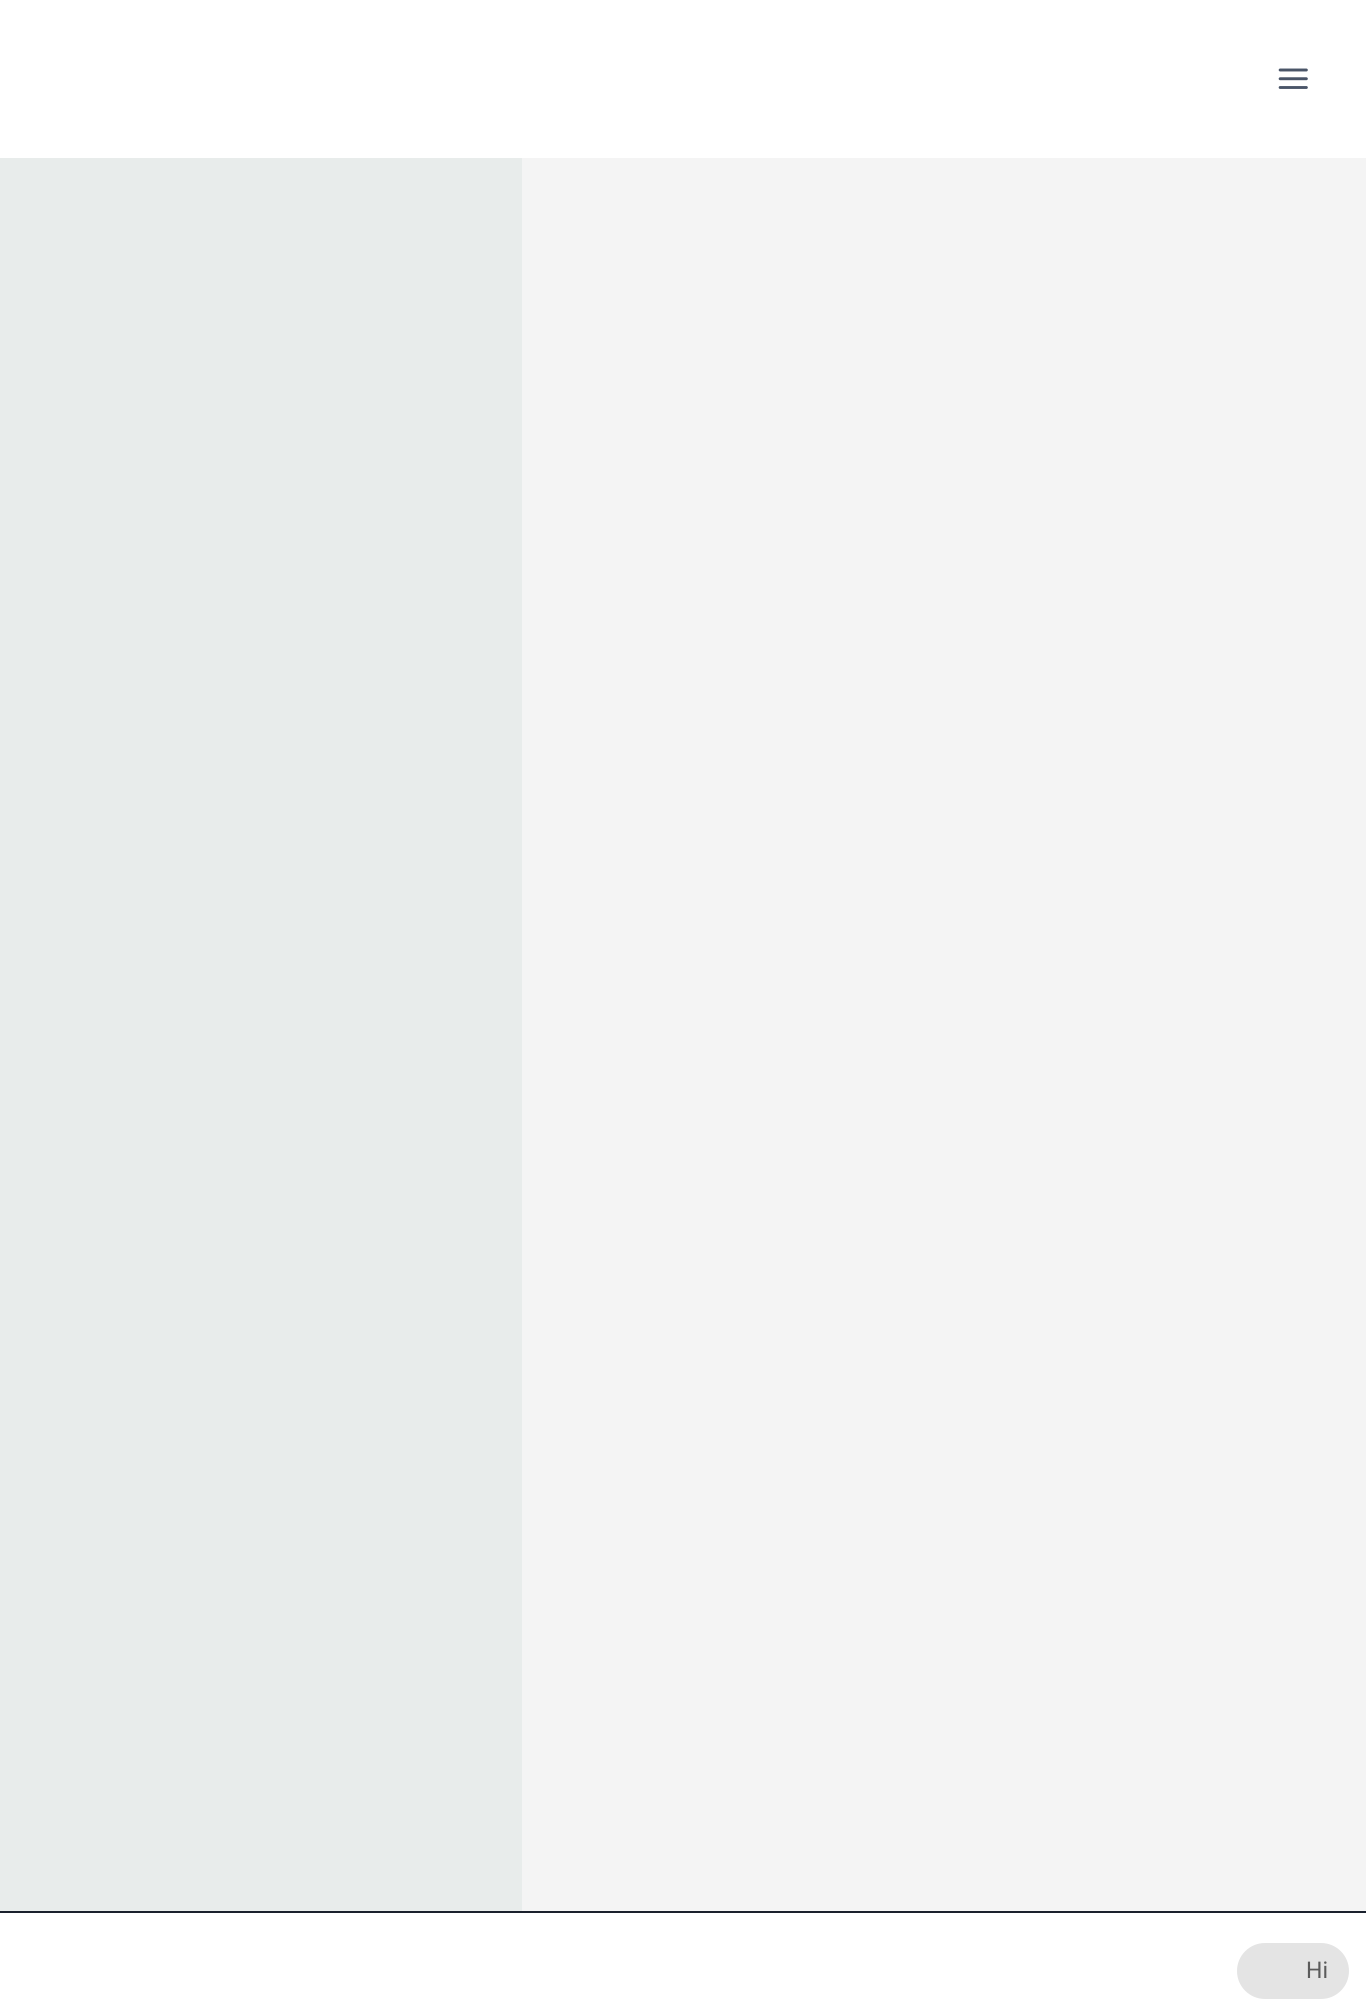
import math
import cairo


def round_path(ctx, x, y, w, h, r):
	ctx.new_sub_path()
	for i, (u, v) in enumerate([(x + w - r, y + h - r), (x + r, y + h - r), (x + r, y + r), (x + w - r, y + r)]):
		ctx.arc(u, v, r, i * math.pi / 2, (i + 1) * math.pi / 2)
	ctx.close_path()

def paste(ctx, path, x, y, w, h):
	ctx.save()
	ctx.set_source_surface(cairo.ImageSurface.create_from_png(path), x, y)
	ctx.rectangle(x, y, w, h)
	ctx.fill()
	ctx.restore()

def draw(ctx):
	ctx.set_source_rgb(1, 1, 1)
	ctx.paint()
	paste(ctx, 'media/1.png', 1278, 68, 30, 21)
	ctx.set_source_rgb(0.957, 0.957, 0.957)
	ctx.rectangle(522, 158, 844, 1753)
	ctx.fill()
	ctx.set_source_rgb(0.91, 0.922, 0.918)
	ctx.rectangle(0, 158, 522, 1753)
	ctx.fill()
	ctx.set_source_rgb(0.102, 0.125, 0.173)
	ctx.rectangle(0, 1911, 1366, 2)
	ctx.fill()
	ctx.set_source_rgb(0.894, 0.894, 0.894)
	round_path(ctx, 1237, 1943, 112, 56, 28)
	ctx.fill()
	ctx.select_font_face('Roboto')
	ctx.set_font_size(23)
	ctx.set_source_rgb(0.357, 0.357, 0.357)
	ctx.move_to(1306, 1978)
	ctx.show_text('Hi')


surface = cairo.ImageSurface(cairo.FORMAT_RGB24, 1366, 2016)
ctx = cairo.Context(surface)
options = cairo.FontOptions()
options.set_hint_metrics(cairo.HINT_METRICS_OFF)
options.set_hint_style(cairo.HINT_STYLE_NONE)
ctx.set_font_options(options)
ctx.set_miter_limit(4)
draw(ctx)
surface.write_to_png('image.png')
